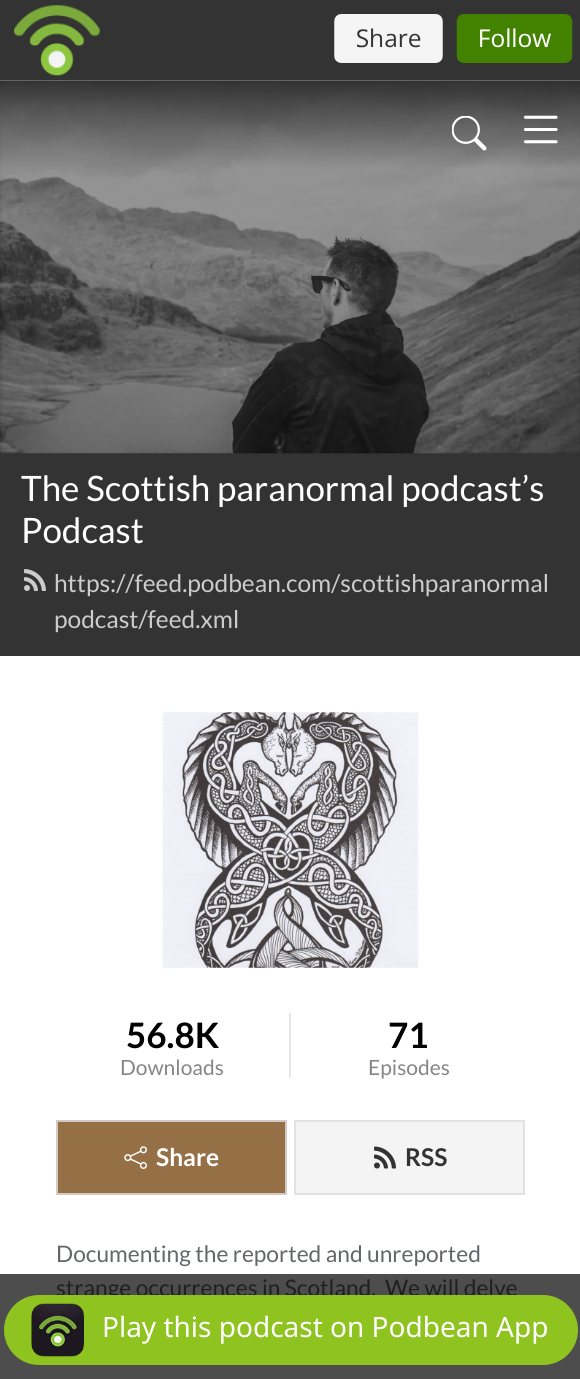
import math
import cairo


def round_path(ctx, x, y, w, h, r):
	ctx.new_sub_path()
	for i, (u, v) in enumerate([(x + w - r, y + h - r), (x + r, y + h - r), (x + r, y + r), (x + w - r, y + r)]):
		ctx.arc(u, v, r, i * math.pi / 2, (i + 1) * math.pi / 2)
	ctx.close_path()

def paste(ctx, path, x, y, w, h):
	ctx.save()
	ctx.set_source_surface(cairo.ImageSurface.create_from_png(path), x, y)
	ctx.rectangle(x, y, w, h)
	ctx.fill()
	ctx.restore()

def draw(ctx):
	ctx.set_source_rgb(1, 1, 1)
	ctx.paint()
	ctx.set_source_rgb(0.302, 0.302, 0.302)
	ctx.rectangle(0, 1274, 580, 105)
	ctx.fill()
	ctx.set_source_rgb(0.2, 0.2, 0.2)
	ctx.rectangle(0, 0, 580, 5)
	ctx.fill()
	paste(ctx, 'media/1.png', 0, 5, 580, 76)
	ctx.rectangle(0, 453, 580, 203)
	ctx.fill()
	paste(ctx, 'media/4.png', 0, 81, 580, 373)
	paste(ctx, 'media/2.png', 452, 116, 35, 35)
	paste(ctx, 'media/3.png', 523, 115, 35, 29)
	ctx.select_font_face('Lato')
	ctx.set_font_size(35)
	ctx.set_source_rgb(1, 1, 1)
	ctx.move_to(21, 501)
	ctx.show_text('The Scottish paranormal podcast’s')
	ctx.move_to(21, 543)
	ctx.show_text('Podcast')
	paste(ctx, 'media/5.png', 24, 569, 22, 22)
	ctx.set_font_size(24.5)
	ctx.set_source_rgb(0.8, 0.8, 0.8)
	ctx.move_to(54, 592)
	ctx.show_text('https://feed.podbean.com/scottishparanormal')
	ctx.move_to(54, 628)
	ctx.show_text('podcast/feed.xml')
	paste(ctx, 'media/6.png', 162, 712, 257, 256)
	ctx.select_font_face('Lato', cairo.FONT_SLANT_NORMAL, cairo.FONT_WEIGHT_BOLD)
	ctx.set_font_size(35)
	ctx.set_source_rgb(0, 0, 0)
	ctx.move_to(126, 1048)
	ctx.show_text('56.8K')
	ctx.select_font_face('Lato')
	ctx.set_font_size(21)
	ctx.set_source_rgb(0.525, 0.525, 0.525)
	ctx.move_to(120, 1075)
	ctx.show_text('Downloads')
	ctx.set_source_rgb(0.902, 0.902, 0.902)
	ctx.rectangle(289, 1013, 2, 65)
	ctx.fill()
	ctx.select_font_face('Lato', cairo.FONT_SLANT_NORMAL, cairo.FONT_WEIGHT_BOLD)
	ctx.set_font_size(35)
	ctx.set_source_rgb(0, 0, 0)
	ctx.move_to(388, 1048)
	ctx.show_text('71')
	ctx.select_font_face('Lato')
	ctx.set_font_size(21)
	ctx.set_source_rgb(0.525, 0.525, 0.525)
	ctx.move_to(368, 1075)
	ctx.show_text('Episodes')
	ctx.set_source_rgb(0.584, 0.435, 0.275)
	ctx.rectangle(57, 1121, 229, 73)
	ctx.fill_preserve()
	ctx.set_source_rgb(0.827, 0.796, 0.765)
	ctx.stroke()
	paste(ctx, 'media/7.png', 124, 1146, 23, 23)
	ctx.select_font_face('Lato', cairo.FONT_SLANT_NORMAL, cairo.FONT_WEIGHT_BOLD)
	ctx.set_font_size(24.5)
	ctx.set_source_rgb(1, 1, 1)
	ctx.move_to(156, 1166)
	ctx.show_text('Share')
	ctx.set_source_rgb(0.957, 0.957, 0.957)
	ctx.rectangle(295, 1121, 229, 73)
	ctx.fill_preserve()
	ctx.set_source_rgb(0.886, 0.886, 0.886)
	ctx.stroke()
	paste(ctx, 'media/8.png', 374, 1146, 22, 23)
	ctx.set_source_rgb(0.2, 0.2, 0.2)
	ctx.move_to(405, 1166)
	ctx.show_text('RSS')
	ctx.select_font_face('Lato')
	ctx.set_font_size(22.75)
	ctx.set_source_rgb(0.392, 0.4, 0.412)
	ctx.move_to(56, 1262)
	ctx.show_text('Documenting the reported and unreported')
	ctx.set_source_rgb(0.118, 0.122, 0.125)
	ctx.move_to(56, 1296)
	ctx.show_text('strange occurrences in Scotland.  We will delve')
	ctx.set_source_rgb(0.561, 0.765, 0.122)
	round_path(ctx, 4, 1295, 574, 70, 35)
	ctx.fill()
	paste(ctx, 'media/9.png', 31, 1303, 53, 54)
	ctx.select_font_face('Noto Sans')
	ctx.set_font_size(28)
	ctx.set_source_rgb(1, 1, 1)
	ctx.move_to(102, 1337)
	ctx.show_text('Play this podcast on Podbean App')


surface = cairo.ImageSurface(cairo.FORMAT_RGB24, 580, 1379)
ctx = cairo.Context(surface)
options = cairo.FontOptions()
options.set_hint_metrics(cairo.HINT_METRICS_OFF)
options.set_hint_style(cairo.HINT_STYLE_NONE)
ctx.set_font_options(options)
ctx.set_miter_limit(4)
draw(ctx)
surface.write_to_png('image.png')
